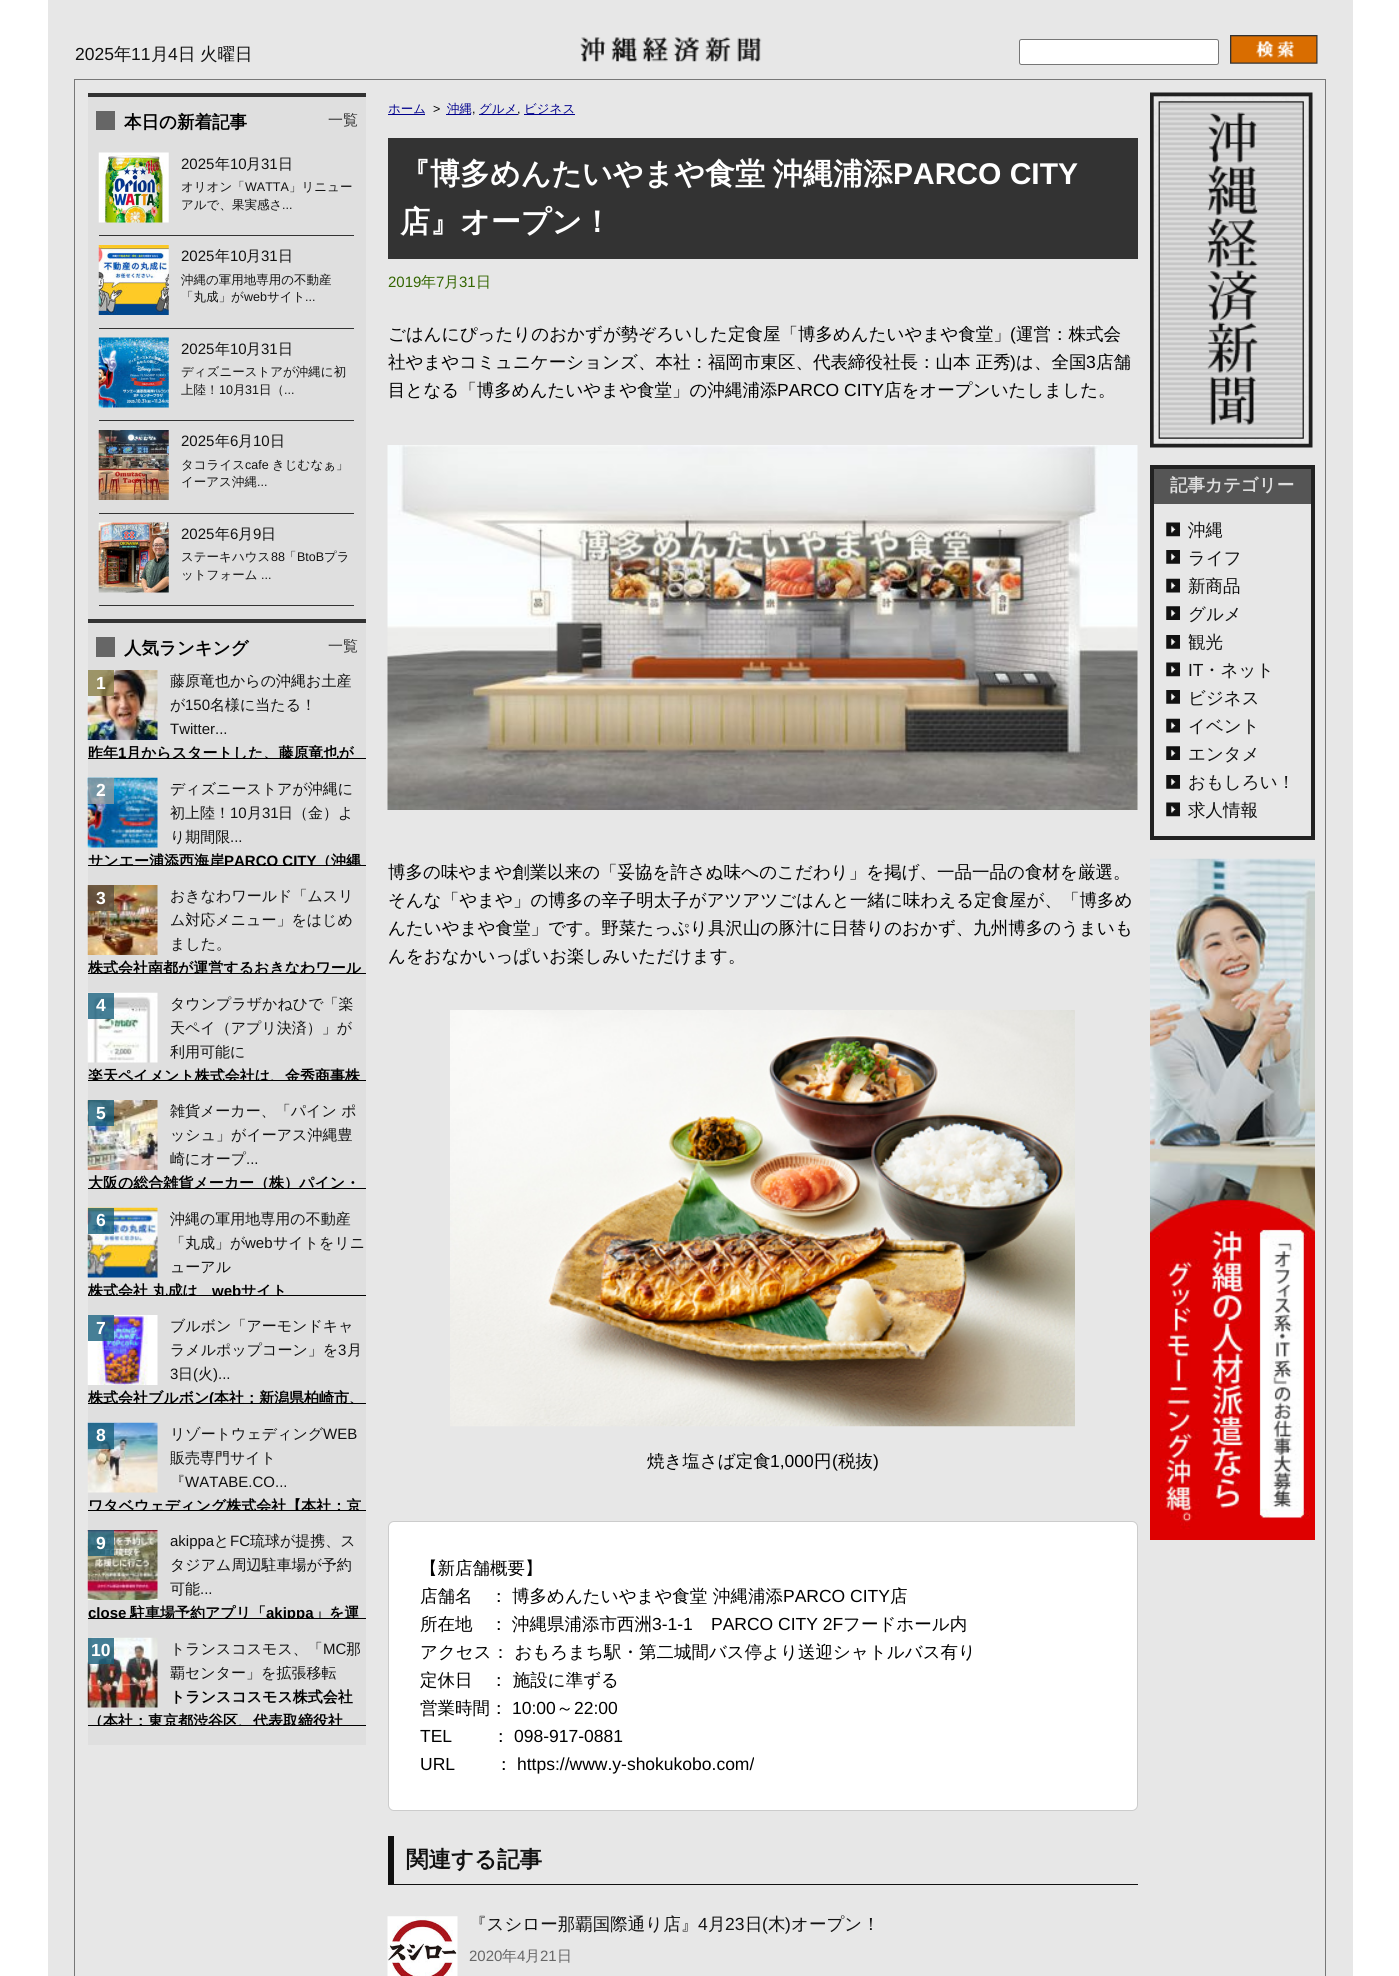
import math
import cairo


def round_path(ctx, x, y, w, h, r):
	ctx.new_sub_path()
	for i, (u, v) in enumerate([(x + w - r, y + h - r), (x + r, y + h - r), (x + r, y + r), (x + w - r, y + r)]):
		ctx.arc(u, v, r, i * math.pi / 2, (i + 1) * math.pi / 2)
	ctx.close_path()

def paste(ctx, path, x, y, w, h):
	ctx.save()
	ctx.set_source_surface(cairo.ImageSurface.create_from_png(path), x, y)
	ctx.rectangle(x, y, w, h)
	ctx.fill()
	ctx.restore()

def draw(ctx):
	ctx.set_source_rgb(1, 1, 1)
	ctx.paint()
	ctx.set_source_rgb(0.906, 0.906, 0.906)
	ctx.rectangle(48, 0, 1305, 1976)
	ctx.fill()
	ctx.select_font_face('Liberation Sans')
	ctx.set_font_size(17.5)
	ctx.set_source_rgb(0.067, 0.067, 0.067)
	ctx.move_to(75, 60)
	ctx.show_text('2025')
	ctx.select_font_face('WenQuanYi Zen Hei Medium')
	ctx.move_to(114, 60)
	ctx.show_text('年')
	ctx.select_font_face('Liberation Sans')
	ctx.move_to(131, 60)
	ctx.show_text('11')
	ctx.select_font_face('WenQuanYi Zen Hei Medium')
	ctx.move_to(151, 60)
	ctx.show_text('月')
	ctx.select_font_face('Liberation Sans')
	ctx.move_to(168, 60)
	ctx.show_text('4')
	ctx.select_font_face('WenQuanYi Zen Hei Medium')
	ctx.move_to(178, 60)
	ctx.show_text('日')
	ctx.move_to(200, 60)
	ctx.show_text('火曜日')
	paste(ctx, 'media/1.png', 580, 37, 182, 25)
	ctx.set_source_rgb(1, 1, 1)
	round_path(ctx, 1019.5, 39.5, 199, 25, 2)
	ctx.fill_preserve()
	ctx.set_source_rgb(0.463, 0.463, 0.463)
	ctx.set_line_width(1)
	ctx.stroke()
	paste(ctx, 'media/2.png', 1230, 35, 88, 29)
	ctx.rectangle(74.5, 79.5, 1251, 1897)
	ctx.set_source_rgb(0.467, 0.467, 0.467)
	ctx.stroke()
	ctx.set_source_rgb(0.875, 0.875, 0.875)
	ctx.rectangle(88, 97, 278, 1648)
	ctx.fill()
	ctx.set_source_rgb(0.2, 0.2, 0.2)
	ctx.rectangle(88, 93, 278, 4)
	ctx.fill()
	ctx.select_font_face('WenQuanYi Zen Hei', cairo.FONT_SLANT_NORMAL, cairo.FONT_WEIGHT_BOLD)
	ctx.set_source_rgb(0, 0, 0)
	ctx.move_to(124, 128)
	ctx.show_text('本日の新着記事')
	ctx.set_source_rgb(0.4, 0.4, 0.4)
	ctx.rectangle(96, 111, 19, 19)
	ctx.fill()
	ctx.select_font_face('WenQuanYi Zen Hei Medium')
	ctx.set_font_size(15)
	ctx.set_source_rgb(0.2, 0.2, 0.2)
	ctx.move_to(328, 125)
	ctx.show_text('一覧')
	ctx.rectangle(99, 235, 255, 1)
	ctx.fill()
	paste(ctx, 'media/3.png', 98, 152, 71, 71)
	ctx.select_font_face('Liberation Sans')
	ctx.set_source_rgb(0.067, 0.067, 0.067)
	ctx.move_to(181, 169)
	ctx.show_text('2025')
	ctx.select_font_face('WenQuanYi Zen Hei Medium')
	ctx.move_to(215, 169)
	ctx.show_text('年')
	ctx.select_font_face('Liberation Sans')
	ctx.move_to(230, 169)
	ctx.show_text('10')
	ctx.select_font_face('WenQuanYi Zen Hei Medium')
	ctx.move_to(246, 169)
	ctx.show_text('月')
	ctx.select_font_face('Liberation Sans')
	ctx.move_to(261, 169)
	ctx.show_text('31')
	ctx.select_font_face('WenQuanYi Zen Hei Medium')
	ctx.move_to(278, 169)
	ctx.show_text('日')
	ctx.set_font_size(12.5)
	ctx.move_to(181, 191)
	ctx.show_text('オリオン「')
	ctx.select_font_face('Liberation Sans')
	ctx.move_to(245, 191)
	ctx.show_text('WATTA')
	ctx.select_font_face('WenQuanYi Zen Hei Medium')
	ctx.move_to(289, 191)
	ctx.show_text('」リニュー')
	ctx.move_to(181, 209)
	ctx.show_text('アルで、果実感さ')
	ctx.select_font_face('Liberation Sans')
	ctx.move_to(282, 209)
	ctx.show_text('...')
	ctx.set_source_rgb(0.2, 0.2, 0.2)
	ctx.rectangle(99, 328, 255, 1)
	ctx.fill()
	paste(ctx, 'media/4.png', 98, 245, 71, 70)
	ctx.set_font_size(15)
	ctx.set_source_rgb(0.067, 0.067, 0.067)
	ctx.move_to(181, 261)
	ctx.show_text('2025')
	ctx.select_font_face('WenQuanYi Zen Hei Medium')
	ctx.move_to(215, 261)
	ctx.show_text('年')
	ctx.select_font_face('Liberation Sans')
	ctx.move_to(230, 261)
	ctx.show_text('10')
	ctx.select_font_face('WenQuanYi Zen Hei Medium')
	ctx.move_to(246, 261)
	ctx.show_text('月')
	ctx.select_font_face('Liberation Sans')
	ctx.move_to(261, 261)
	ctx.show_text('31')
	ctx.select_font_face('WenQuanYi Zen Hei Medium')
	ctx.move_to(278, 261)
	ctx.show_text('日')
	ctx.set_font_size(12.5)
	ctx.move_to(181, 284)
	ctx.show_text('沖縄の軍用地専用の不動産')
	ctx.move_to(181, 301)
	ctx.show_text('「丸成」が')
	ctx.select_font_face('Liberation Sans')
	ctx.move_to(244, 301)
	ctx.show_text('web')
	ctx.select_font_face('WenQuanYi Zen Hei Medium')
	ctx.move_to(267, 301)
	ctx.show_text('サイト')
	ctx.select_font_face('Liberation Sans')
	ctx.move_to(305, 301)
	ctx.show_text('...')
	ctx.set_source_rgb(0.2, 0.2, 0.2)
	ctx.rectangle(99, 420, 255, 1)
	ctx.fill()
	paste(ctx, 'media/5.png', 98, 337, 71, 71)
	ctx.set_font_size(15)
	ctx.set_source_rgb(0.067, 0.067, 0.067)
	ctx.move_to(181, 354)
	ctx.show_text('2025')
	ctx.select_font_face('WenQuanYi Zen Hei Medium')
	ctx.move_to(215, 354)
	ctx.show_text('年')
	ctx.select_font_face('Liberation Sans')
	ctx.move_to(230, 354)
	ctx.show_text('10')
	ctx.select_font_face('WenQuanYi Zen Hei Medium')
	ctx.move_to(246, 354)
	ctx.show_text('月')
	ctx.select_font_face('Liberation Sans')
	ctx.move_to(261, 354)
	ctx.show_text('31')
	ctx.select_font_face('WenQuanYi Zen Hei Medium')
	ctx.move_to(278, 354)
	ctx.show_text('日')
	ctx.set_font_size(12.5)
	ctx.move_to(181, 376)
	ctx.show_text('ディズニーストアが沖縄に初')
	ctx.move_to(181, 394)
	ctx.show_text('上陸！')
	ctx.select_font_face('Liberation Sans')
	ctx.move_to(219, 394)
	ctx.show_text('10')
	ctx.select_font_face('WenQuanYi Zen Hei Medium')
	ctx.move_to(233, 394)
	ctx.show_text('月')
	ctx.select_font_face('Liberation Sans')
	ctx.move_to(245, 394)
	ctx.show_text('31')
	ctx.select_font_face('WenQuanYi Zen Hei Medium')
	ctx.move_to(259, 394)
	ctx.show_text('日（')
	ctx.select_font_face('Liberation Sans')
	ctx.move_to(284, 394)
	ctx.show_text('...')
	ctx.set_source_rgb(0.2, 0.2, 0.2)
	ctx.rectangle(99, 513, 255, 1)
	ctx.fill()
	paste(ctx, 'media/6.png', 98, 430, 71, 70)
	ctx.set_font_size(15)
	ctx.set_source_rgb(0.067, 0.067, 0.067)
	ctx.move_to(181, 446)
	ctx.show_text('2025')
	ctx.select_font_face('WenQuanYi Zen Hei Medium')
	ctx.move_to(215, 446)
	ctx.show_text('年')
	ctx.select_font_face('Liberation Sans')
	ctx.move_to(230, 446)
	ctx.show_text('6')
	ctx.select_font_face('WenQuanYi Zen Hei Medium')
	ctx.move_to(238, 446)
	ctx.show_text('月')
	ctx.select_font_face('Liberation Sans')
	ctx.move_to(253, 446)
	ctx.show_text('10')
	ctx.select_font_face('WenQuanYi Zen Hei Medium')
	ctx.move_to(270, 446)
	ctx.show_text('日')
	ctx.set_font_size(12.5)
	ctx.move_to(181, 469)
	ctx.show_text('タコライス')
	ctx.select_font_face('Liberation Sans')
	ctx.move_to(245, 469)
	ctx.show_text('cafe')
	ctx.select_font_face('WenQuanYi Zen Hei Medium')
	ctx.move_to(272, 469)
	ctx.show_text('きじむなぁ」')
	ctx.move_to(181, 486)
	ctx.show_text('イーアス沖縄')
	ctx.select_font_face('Liberation Sans')
	ctx.move_to(257, 486)
	ctx.show_text('...')
	ctx.set_source_rgb(0.2, 0.2, 0.2)
	ctx.rectangle(99, 605, 255, 1)
	ctx.fill()
	paste(ctx, 'media/7.png', 98, 522, 71, 71)
	ctx.set_font_size(15)
	ctx.set_source_rgb(0.067, 0.067, 0.067)
	ctx.move_to(181, 539)
	ctx.show_text('2025')
	ctx.select_font_face('WenQuanYi Zen Hei Medium')
	ctx.move_to(215, 539)
	ctx.show_text('年')
	ctx.select_font_face('Liberation Sans')
	ctx.move_to(230, 539)
	ctx.show_text('6')
	ctx.select_font_face('WenQuanYi Zen Hei Medium')
	ctx.move_to(238, 539)
	ctx.show_text('月')
	ctx.select_font_face('Liberation Sans')
	ctx.move_to(253, 539)
	ctx.show_text('9')
	ctx.select_font_face('WenQuanYi Zen Hei Medium')
	ctx.move_to(261, 539)
	ctx.show_text('日')
	ctx.set_font_size(12.5)
	ctx.move_to(181, 561)
	ctx.show_text('ステーキハウス')
	ctx.select_font_face('Liberation Sans')
	ctx.move_to(271, 561)
	ctx.show_text('88')
	ctx.select_font_face('WenQuanYi Zen Hei Medium')
	ctx.move_to(284, 561)
	ctx.show_text('「')
	ctx.select_font_face('Liberation Sans')
	ctx.move_to(297, 561)
	ctx.show_text('BtoB')
	ctx.select_font_face('WenQuanYi Zen Hei Medium')
	ctx.move_to(324, 561)
	ctx.show_text('プラ')
	ctx.move_to(181, 579)
	ctx.show_text('ットフォーム')
	ctx.select_font_face('Liberation Sans')
	ctx.move_to(261, 579)
	ctx.show_text('...')
	ctx.set_source_rgb(0.2, 0.2, 0.2)
	ctx.rectangle(88, 619, 278, 4)
	ctx.fill()
	ctx.select_font_face('WenQuanYi Zen Hei', cairo.FONT_SLANT_NORMAL, cairo.FONT_WEIGHT_BOLD)
	ctx.set_font_size(17.5)
	ctx.set_source_rgb(0, 0, 0)
	ctx.move_to(124, 654)
	ctx.show_text('人気ランキング')
	ctx.set_source_rgb(0.4, 0.4, 0.4)
	ctx.rectangle(96, 637, 19, 20)
	ctx.fill()
	ctx.select_font_face('WenQuanYi Zen Hei Medium')
	ctx.set_font_size(15)
	ctx.set_source_rgb(0.2, 0.2, 0.2)
	ctx.move_to(328, 651)
	ctx.show_text('一覧')
	ctx.set_source_rgb(0, 0, 0)
	ctx.rectangle(88, 758, 278, 1)
	ctx.fill()
	paste(ctx, 'media/8.png', 87, 670, 71, 70)
	ctx.set_source_rgb(0.067, 0.067, 0.067)
	ctx.move_to(170, 686)
	ctx.show_text('藤原竜也からの沖縄お土産')
	ctx.set_source_rgba(0.533, 0.494, 0.275, 0.8)
	ctx.rectangle(88, 670, 26, 26)
	ctx.fill()
	ctx.select_font_face('Liberation Sans', cairo.FONT_SLANT_NORMAL, cairo.FONT_WEIGHT_BOLD)
	ctx.set_font_size(17.5)
	ctx.set_source_rgb(1, 1, 1)
	ctx.move_to(96, 689)
	ctx.show_text('1')
	ctx.select_font_face('WenQuanYi Zen Hei Medium')
	ctx.set_font_size(15)
	ctx.set_source_rgb(0.067, 0.067, 0.067)
	ctx.move_to(170, 710)
	ctx.show_text('が')
	ctx.select_font_face('Liberation Sans')
	ctx.move_to(185, 710)
	ctx.show_text('150')
	ctx.select_font_face('WenQuanYi Zen Hei Medium')
	ctx.move_to(210, 710)
	ctx.show_text('名様に当たる！')
	ctx.select_font_face('Liberation Sans')
	ctx.move_to(170, 734)
	ctx.show_text('Twitter...')
	ctx.save()
	ctx.rectangle(88, 670, 278, 88)
	ctx.clip()
	ctx.select_font_face('WenQuanYi Zen Hei', cairo.FONT_SLANT_NORMAL, cairo.FONT_WEIGHT_BOLD)
	ctx.set_source_rgb(0, 0, 0)
	ctx.move_to(88, 758)
	ctx.show_text('昨年')
	ctx.restore()
	ctx.select_font_face('Liberation Sans', cairo.FONT_SLANT_NORMAL, cairo.FONT_WEIGHT_BOLD)
	ctx.set_source_rgb(0, 0, 0)
	ctx.move_to(118, 758)
	ctx.show_text('1')
	ctx.save()
	ctx.rectangle(88, 670, 278, 88)
	ctx.clip()
	ctx.select_font_face('WenQuanYi Zen Hei', cairo.FONT_SLANT_NORMAL, cairo.FONT_WEIGHT_BOLD)
	ctx.move_to(126, 758)
	ctx.show_text('月からスタートした、藤原竜也が')
	ctx.restore()
	ctx.rectangle(88, 865, 278, 1)
	ctx.fill()
	paste(ctx, 'media/9.png', 87, 777, 71, 71)
	ctx.select_font_face('WenQuanYi Zen Hei Medium')
	ctx.set_source_rgb(0.067, 0.067, 0.067)
	ctx.move_to(170, 794)
	ctx.show_text('ディズニーストアが沖縄に')
	ctx.set_source_rgba(0.569, 0.604, 0.616, 0.8)
	ctx.rectangle(88, 778, 26, 26)
	ctx.fill()
	ctx.select_font_face('Liberation Sans', cairo.FONT_SLANT_NORMAL, cairo.FONT_WEIGHT_BOLD)
	ctx.set_font_size(17.5)
	ctx.set_source_rgb(1, 1, 1)
	ctx.move_to(96, 796)
	ctx.show_text('2')
	ctx.select_font_face('WenQuanYi Zen Hei Medium')
	ctx.set_font_size(15)
	ctx.set_source_rgb(0.067, 0.067, 0.067)
	ctx.move_to(170, 818)
	ctx.show_text('初上陸！')
	ctx.select_font_face('Liberation Sans')
	ctx.move_to(230, 818)
	ctx.show_text('10')
	ctx.select_font_face('WenQuanYi Zen Hei Medium')
	ctx.move_to(247, 818)
	ctx.show_text('月')
	ctx.select_font_face('Liberation Sans')
	ctx.move_to(262, 818)
	ctx.show_text('31')
	ctx.select_font_face('WenQuanYi Zen Hei Medium')
	ctx.move_to(278, 818)
	ctx.show_text('日（金）よ')
	ctx.move_to(170, 842)
	ctx.show_text('り期間限')
	ctx.select_font_face('Liberation Sans')
	ctx.move_to(230, 842)
	ctx.show_text('...')
	ctx.save()
	ctx.rectangle(88, 778, 278, 87)
	ctx.clip()
	ctx.select_font_face('WenQuanYi Zen Hei', cairo.FONT_SLANT_NORMAL, cairo.FONT_WEIGHT_BOLD)
	ctx.set_source_rgb(0, 0, 0)
	ctx.move_to(88, 866)
	ctx.show_text('サンエー浦添西海岸')
	ctx.select_font_face('Liberation Sans', cairo.FONT_SLANT_NORMAL, cairo.FONT_WEIGHT_BOLD)
	ctx.move_to(224, 866)
	ctx.show_text('PARCO CITY')
	ctx.select_font_face('WenQuanYi Zen Hei', cairo.FONT_SLANT_NORMAL, cairo.FONT_WEIGHT_BOLD)
	ctx.move_to(316, 866)
	ctx.show_text('（沖縄')
	ctx.restore()
	ctx.set_source_rgb(0, 0, 0)
	ctx.rectangle(88, 973, 278, 1)
	ctx.fill()
	paste(ctx, 'media/10.png', 87, 885, 71, 70)
	ctx.select_font_face('WenQuanYi Zen Hei Medium')
	ctx.set_source_rgb(0.067, 0.067, 0.067)
	ctx.move_to(170, 901)
	ctx.show_text('おきなわワールド「ムスリ')
	ctx.set_source_rgba(0.345, 0.29, 0.235, 0.8)
	ctx.rectangle(88, 885, 26, 26)
	ctx.fill()
	ctx.select_font_face('Liberation Sans', cairo.FONT_SLANT_NORMAL, cairo.FONT_WEIGHT_BOLD)
	ctx.set_font_size(17.5)
	ctx.set_source_rgb(1, 1, 1)
	ctx.move_to(96, 904)
	ctx.show_text('3')
	ctx.select_font_face('WenQuanYi Zen Hei Medium')
	ctx.set_font_size(15)
	ctx.set_source_rgb(0.067, 0.067, 0.067)
	ctx.move_to(170, 925)
	ctx.show_text('ム対応メニュー」をはじめ')
	ctx.move_to(170, 949)
	ctx.show_text('ました。')
	ctx.save()
	ctx.rectangle(88, 885, 278, 88)
	ctx.clip()
	ctx.select_font_face('WenQuanYi Zen Hei', cairo.FONT_SLANT_NORMAL, cairo.FONT_WEIGHT_BOLD)
	ctx.set_source_rgb(0, 0, 0)
	ctx.move_to(88, 973)
	ctx.show_text('株式会社南都が運営するおきなわワール')
	ctx.restore()
	ctx.set_source_rgb(0, 0, 0)
	ctx.rectangle(88, 1080, 278, 1)
	ctx.fill()
	paste(ctx, 'media/11.png', 87, 992, 71, 71)
	ctx.set_source_rgb(0.067, 0.067, 0.067)
	ctx.move_to(170, 1009)
	ctx.show_text('タウンプラザかねひで「楽')
	ctx.set_source_rgba(0.094, 0.373, 0.486, 0.8)
	ctx.rectangle(88, 993, 26, 26)
	ctx.fill()
	ctx.select_font_face('Liberation Sans', cairo.FONT_SLANT_NORMAL, cairo.FONT_WEIGHT_BOLD)
	ctx.set_font_size(17.5)
	ctx.set_source_rgb(1, 1, 1)
	ctx.move_to(96, 1011)
	ctx.show_text('4')
	ctx.select_font_face('WenQuanYi Zen Hei Medium')
	ctx.set_font_size(15)
	ctx.set_source_rgb(0.067, 0.067, 0.067)
	ctx.move_to(170, 1033)
	ctx.show_text('天ペイ（アプリ決済）」が')
	ctx.move_to(170, 1057)
	ctx.show_text('利用可能に')
	ctx.save()
	ctx.rectangle(88, 993, 278, 87)
	ctx.clip()
	ctx.select_font_face('WenQuanYi Zen Hei', cairo.FONT_SLANT_NORMAL, cairo.FONT_WEIGHT_BOLD)
	ctx.set_source_rgb(0, 0, 0)
	ctx.move_to(88, 1081)
	ctx.show_text('楽天ペイメント株式会社は、金秀商事株')
	ctx.restore()
	ctx.set_source_rgb(0, 0, 0)
	ctx.rectangle(88, 1188, 278, 1)
	ctx.fill()
	paste(ctx, 'media/12.png', 87, 1100, 71, 70)
	ctx.set_source_rgb(0.067, 0.067, 0.067)
	ctx.move_to(170, 1116)
	ctx.show_text('雑貨メーカー、「パイン ポ')
	ctx.set_source_rgba(0.094, 0.373, 0.486, 0.8)
	ctx.rectangle(88, 1100, 26, 26)
	ctx.fill()
	ctx.select_font_face('Liberation Sans', cairo.FONT_SLANT_NORMAL, cairo.FONT_WEIGHT_BOLD)
	ctx.set_font_size(17.5)
	ctx.set_source_rgb(1, 1, 1)
	ctx.move_to(96, 1119)
	ctx.show_text('5')
	ctx.select_font_face('WenQuanYi Zen Hei Medium')
	ctx.set_font_size(15)
	ctx.set_source_rgb(0.067, 0.067, 0.067)
	ctx.move_to(170, 1140)
	ctx.show_text('ッシュ」がイーアス沖縄豊')
	ctx.move_to(170, 1164)
	ctx.show_text('崎にオープ')
	ctx.select_font_face('Liberation Sans')
	ctx.move_to(246, 1164)
	ctx.show_text('...')
	ctx.save()
	ctx.rectangle(88, 1100, 278, 88)
	ctx.clip()
	ctx.select_font_face('WenQuanYi Zen Hei', cairo.FONT_SLANT_NORMAL, cairo.FONT_WEIGHT_BOLD)
	ctx.set_source_rgb(0, 0, 0)
	ctx.move_to(88, 1188)
	ctx.show_text('大阪の総合雑貨メーカー（株）パイン・')
	ctx.restore()
	ctx.set_source_rgb(0, 0, 0)
	ctx.rectangle(88, 1295, 278, 1)
	ctx.fill()
	paste(ctx, 'media/13.png', 87, 1207, 71, 71)
	ctx.select_font_face('WenQuanYi Zen Hei Medium')
	ctx.set_source_rgb(0.067, 0.067, 0.067)
	ctx.move_to(170, 1224)
	ctx.show_text('沖縄の軍用地専用の不動産')
	ctx.set_source_rgba(0.094, 0.373, 0.486, 0.8)
	ctx.rectangle(88, 1208, 26, 26)
	ctx.fill()
	ctx.select_font_face('Liberation Sans', cairo.FONT_SLANT_NORMAL, cairo.FONT_WEIGHT_BOLD)
	ctx.set_font_size(17.5)
	ctx.set_source_rgb(1, 1, 1)
	ctx.move_to(96, 1226)
	ctx.show_text('6')
	ctx.select_font_face('WenQuanYi Zen Hei Medium')
	ctx.set_font_size(15)
	ctx.set_source_rgb(0.067, 0.067, 0.067)
	ctx.move_to(170, 1248)
	ctx.show_text('「丸成」が')
	ctx.select_font_face('Liberation Sans')
	ctx.move_to(245, 1248)
	ctx.show_text('web')
	ctx.select_font_face('WenQuanYi Zen Hei Medium')
	ctx.move_to(273, 1248)
	ctx.show_text('サイトをリニ')
	ctx.move_to(170, 1272)
	ctx.show_text('ューアル')
	ctx.save()
	ctx.rectangle(88, 1208, 278, 87)
	ctx.clip()
	ctx.select_font_face('WenQuanYi Zen Hei', cairo.FONT_SLANT_NORMAL, cairo.FONT_WEIGHT_BOLD)
	ctx.set_source_rgb(0, 0, 0)
	ctx.move_to(88, 1296)
	ctx.show_text('株式会社 丸成は')
	ctx.select_font_face('Liberation Sans', cairo.FONT_SLANT_NORMAL, cairo.FONT_WEIGHT_BOLD)
	ctx.move_to(212, 1296)
	ctx.show_text('web')
	ctx.select_font_face('WenQuanYi Zen Hei', cairo.FONT_SLANT_NORMAL, cairo.FONT_WEIGHT_BOLD)
	ctx.move_to(241, 1296)
	ctx.show_text('サイト')
	ctx.restore()
	ctx.set_source_rgb(0, 0, 0)
	ctx.rectangle(88, 1403, 278, 1)
	ctx.fill()
	paste(ctx, 'media/14.png', 87, 1315, 71, 70)
	ctx.set_source_rgb(0.067, 0.067, 0.067)
	ctx.move_to(170, 1331)
	ctx.show_text('ブルボン「アーモンドキャ')
	ctx.set_source_rgba(0.094, 0.373, 0.486, 0.8)
	ctx.rectangle(88, 1315, 26, 26)
	ctx.fill()
	ctx.select_font_face('Liberation Sans', cairo.FONT_SLANT_NORMAL, cairo.FONT_WEIGHT_BOLD)
	ctx.set_font_size(17.5)
	ctx.set_source_rgb(1, 1, 1)
	ctx.move_to(96, 1334)
	ctx.show_text('7')
	ctx.select_font_face('WenQuanYi Zen Hei Medium')
	ctx.set_font_size(15)
	ctx.set_source_rgb(0.067, 0.067, 0.067)
	ctx.move_to(170, 1355)
	ctx.show_text('ラメルポップコーン」を')
	ctx.select_font_face('Liberation Sans')
	ctx.move_to(338, 1355)
	ctx.show_text('3')
	ctx.select_font_face('WenQuanYi Zen Hei Medium')
	ctx.move_to(347, 1355)
	ctx.show_text('月')
	ctx.select_font_face('Liberation Sans')
	ctx.move_to(170, 1379)
	ctx.show_text('3')
	ctx.select_font_face('WenQuanYi Zen Hei Medium')
	ctx.move_to(178, 1379)
	ctx.show_text('日')
	ctx.select_font_face('Liberation Sans')
	ctx.move_to(193, 1379)
	ctx.show_text('(')
	ctx.select_font_face('WenQuanYi Zen Hei Medium')
	ctx.move_to(198, 1379)
	ctx.show_text('火')
	ctx.select_font_face('Liberation Sans')
	ctx.move_to(213, 1379)
	ctx.show_text(')...')
	ctx.save()
	ctx.rectangle(88, 1315, 278, 88)
	ctx.clip()
	ctx.select_font_face('WenQuanYi Zen Hei', cairo.FONT_SLANT_NORMAL, cairo.FONT_WEIGHT_BOLD)
	ctx.set_source_rgb(0, 0, 0)
	ctx.move_to(88, 1403)
	ctx.show_text('株式会社ブルボン')
	ctx.select_font_face('Liberation Sans', cairo.FONT_SLANT_NORMAL, cairo.FONT_WEIGHT_BOLD)
	ctx.move_to(209, 1403)
	ctx.show_text('(')
	ctx.select_font_face('WenQuanYi Zen Hei', cairo.FONT_SLANT_NORMAL, cairo.FONT_WEIGHT_BOLD)
	ctx.move_to(214, 1403)
	ctx.show_text('本社：新潟県柏崎市、')
	ctx.restore()
	ctx.set_source_rgb(0, 0, 0)
	ctx.rectangle(88, 1510, 278, 1)
	ctx.fill()
	paste(ctx, 'media/15.png', 87, 1422, 71, 71)
	ctx.select_font_face('WenQuanYi Zen Hei Medium')
	ctx.set_source_rgb(0.067, 0.067, 0.067)
	ctx.move_to(170, 1439)
	ctx.show_text('リゾートウェディング')
	ctx.set_source_rgba(0.094, 0.373, 0.486, 0.8)
	ctx.rectangle(88, 1423, 26, 26)
	ctx.fill()
	ctx.select_font_face('Liberation Sans', cairo.FONT_SLANT_NORMAL, cairo.FONT_WEIGHT_BOLD)
	ctx.set_font_size(17.5)
	ctx.set_source_rgb(1, 1, 1)
	ctx.move_to(96, 1441)
	ctx.show_text('8')
	ctx.select_font_face('Liberation Sans')
	ctx.set_font_size(15)
	ctx.set_source_rgb(0.067, 0.067, 0.067)
	ctx.move_to(323, 1439)
	ctx.show_text('WEB')
	ctx.select_font_face('WenQuanYi Zen Hei Medium')
	ctx.move_to(170, 1463)
	ctx.show_text('販売専門サイト')
	ctx.move_to(170, 1487)
	ctx.show_text('『')
	ctx.select_font_face('Liberation Sans')
	ctx.move_to(185, 1487)
	ctx.show_text('WATABE.CO...')
	ctx.save()
	ctx.rectangle(88, 1423, 278, 87)
	ctx.clip()
	ctx.select_font_face('WenQuanYi Zen Hei', cairo.FONT_SLANT_NORMAL, cairo.FONT_WEIGHT_BOLD)
	ctx.set_source_rgb(0, 0, 0)
	ctx.move_to(88, 1511)
	ctx.show_text('ワタベウェディング株式会社【本社：京')
	ctx.restore()
	ctx.set_source_rgb(0, 0, 0)
	ctx.rectangle(88, 1618, 278, 1)
	ctx.fill()
	paste(ctx, 'media/16.png', 87, 1530, 71, 70)
	ctx.set_source_rgb(0.067, 0.067, 0.067)
	ctx.move_to(170, 1546)
	ctx.show_text('akippa')
	ctx.select_font_face('WenQuanYi Zen Hei Medium')
	ctx.move_to(214, 1546)
	ctx.show_text('と')
	ctx.select_font_face('Liberation Sans')
	ctx.move_to(230, 1546)
	ctx.show_text('FC')
	ctx.select_font_face('WenQuanYi Zen Hei Medium')
	ctx.move_to(250, 1546)
	ctx.show_text('琉球が提携、ス')
	ctx.set_source_rgba(0.094, 0.373, 0.486, 0.8)
	ctx.rectangle(88, 1530, 26, 26)
	ctx.fill()
	ctx.select_font_face('Liberation Sans', cairo.FONT_SLANT_NORMAL, cairo.FONT_WEIGHT_BOLD)
	ctx.set_font_size(17.5)
	ctx.set_source_rgb(1, 1, 1)
	ctx.move_to(96, 1549)
	ctx.show_text('9')
	ctx.select_font_face('WenQuanYi Zen Hei Medium')
	ctx.set_font_size(15)
	ctx.set_source_rgb(0.067, 0.067, 0.067)
	ctx.move_to(170, 1570)
	ctx.show_text('タジアム周辺駐車場が予約')
	ctx.move_to(170, 1594)
	ctx.show_text('可能')
	ctx.select_font_face('Liberation Sans')
	ctx.move_to(200, 1594)
	ctx.show_text('...')
	ctx.save()
	ctx.rectangle(88, 1530, 278, 88)
	ctx.clip()
	ctx.select_font_face('Liberation Sans', cairo.FONT_SLANT_NORMAL, cairo.FONT_WEIGHT_BOLD)
	ctx.set_source_rgb(0, 0, 0)
	ctx.move_to(88, 1618)
	ctx.show_text('close')
	ctx.select_font_face('WenQuanYi Zen Hei', cairo.FONT_SLANT_NORMAL, cairo.FONT_WEIGHT_BOLD)
	ctx.move_to(130, 1618)
	ctx.show_text('駐車場予約アプリ「')
	ctx.select_font_face('Liberation Sans', cairo.FONT_SLANT_NORMAL, cairo.FONT_WEIGHT_BOLD)
	ctx.move_to(266, 1618)
	ctx.show_text('akippa')
	ctx.select_font_face('WenQuanYi Zen Hei', cairo.FONT_SLANT_NORMAL, cairo.FONT_WEIGHT_BOLD)
	ctx.move_to(314, 1618)
	ctx.show_text('」を運')
	ctx.restore()
	ctx.set_source_rgb(0, 0, 0)
	ctx.rectangle(88, 1725, 278, 1)
	ctx.fill()
	paste(ctx, 'media/17.png', 87, 1637, 71, 71)
	ctx.select_font_face('WenQuanYi Zen Hei Medium')
	ctx.set_source_rgb(0.067, 0.067, 0.067)
	ctx.move_to(170, 1654)
	ctx.show_text('トランスコスモス、「')
	ctx.move_to(346, 1654)
	ctx.show_text('那')
	ctx.set_source_rgba(0.094, 0.373, 0.486, 0.8)
	ctx.rectangle(88, 1638, 26, 26)
	ctx.fill()
	ctx.select_font_face('Liberation Sans', cairo.FONT_SLANT_NORMAL, cairo.FONT_WEIGHT_BOLD)
	ctx.set_font_size(17.5)
	ctx.set_source_rgb(1, 1, 1)
	ctx.move_to(91, 1656)
	ctx.show_text('10')
	ctx.select_font_face('Liberation Sans')
	ctx.set_font_size(15)
	ctx.set_source_rgb(0.067, 0.067, 0.067)
	ctx.move_to(323, 1654)
	ctx.show_text('MC')
	ctx.select_font_face('WenQuanYi Zen Hei Medium')
	ctx.move_to(170, 1678)
	ctx.show_text('覇センター」を拡張移転')
	ctx.select_font_face('WenQuanYi Zen Hei', cairo.FONT_SLANT_NORMAL, cairo.FONT_WEIGHT_BOLD)
	ctx.set_source_rgb(0, 0, 0)
	ctx.move_to(170, 1702)
	ctx.show_text('トランスコスモス株式会社')
	ctx.save()
	ctx.rectangle(88, 1638, 278, 87)
	ctx.clip()
	ctx.move_to(88, 1726)
	ctx.show_text('（本社：東京都渋谷区、代表取締役社')
	ctx.restore()
	ctx.set_source_rgb(0, 0, 0.549)
	ctx.rectangle(388, 114, 37, 1)
	ctx.fill()
	ctx.select_font_face('WenQuanYi Zen Hei Medium')
	ctx.set_font_size(12.5)
	ctx.move_to(388, 113)
	ctx.show_text('ホーム')
	ctx.select_font_face('Liberation Sans')
	ctx.set_source_rgb(0, 0, 0)
	ctx.move_to(433, 113)
	ctx.show_text('>')
	ctx.set_source_rgb(0, 0, 0.549)
	ctx.rectangle(446, 114, 25, 1)
	ctx.fill()
	ctx.select_font_face('WenQuanYi Zen Hei Medium')
	ctx.move_to(447, 113)
	ctx.show_text('沖縄')
	ctx.select_font_face('Liberation Sans')
	ctx.set_source_rgb(0, 0, 0)
	ctx.move_to(472, 113)
	ctx.show_text(',')
	ctx.set_source_rgb(0, 0, 0.549)
	ctx.rectangle(479, 114, 39, 1)
	ctx.fill()
	ctx.select_font_face('WenQuanYi Zen Hei Medium')
	ctx.move_to(479, 113)
	ctx.show_text('グルメ')
	ctx.select_font_face('Liberation Sans')
	ctx.set_source_rgb(0, 0, 0)
	ctx.move_to(517, 113)
	ctx.show_text(',')
	ctx.set_source_rgb(0, 0, 0.549)
	ctx.rectangle(524, 114, 51, 1)
	ctx.fill()
	ctx.select_font_face('WenQuanYi Zen Hei Medium')
	ctx.move_to(524, 113)
	ctx.show_text('ビジネス')
	ctx.set_source_rgb(0.2, 0.2, 0.2)
	ctx.rectangle(388, 138, 750, 121)
	ctx.fill()
	ctx.select_font_face('WenQuanYi Zen Hei', cairo.FONT_SLANT_NORMAL, cairo.FONT_WEIGHT_BOLD)
	ctx.set_font_size(30)
	ctx.set_source_rgb(1, 1, 1)
	ctx.move_to(400, 184)
	ctx.show_text('『博多めんたいやまや食堂')
	ctx.move_to(773, 184)
	ctx.show_text('沖縄浦添')
	ctx.select_font_face('Liberation Sans', cairo.FONT_SLANT_NORMAL, cairo.FONT_WEIGHT_BOLD)
	ctx.move_to(893, 184)
	ctx.show_text('PARCO CITY')
	ctx.select_font_face('WenQuanYi Zen Hei', cairo.FONT_SLANT_NORMAL, cairo.FONT_WEIGHT_BOLD)
	ctx.move_to(400, 232)
	ctx.show_text('店』オープン！')
	ctx.select_font_face('Liberation Sans')
	ctx.set_font_size(15)
	ctx.set_source_rgb(0.2, 0.4, 0)
	ctx.move_to(388, 287)
	ctx.show_text('2019')
	ctx.select_font_face('WenQuanYi Zen Hei Medium')
	ctx.move_to(421, 287)
	ctx.show_text('年')
	ctx.select_font_face('Liberation Sans')
	ctx.move_to(436, 287)
	ctx.show_text('7')
	ctx.select_font_face('WenQuanYi Zen Hei Medium')
	ctx.move_to(444, 287)
	ctx.show_text('月')
	ctx.select_font_face('Liberation Sans')
	ctx.move_to(459, 287)
	ctx.show_text('31')
	ctx.select_font_face('WenQuanYi Zen Hei Medium')
	ctx.move_to(476, 287)
	ctx.show_text('日')
	ctx.set_font_size(17.5)
	ctx.set_source_rgb(0, 0, 0)
	ctx.move_to(388, 340)
	ctx.show_text('ごはんにぴったりのおかずが勢ぞろいした定食屋「博多めんたいやまや食堂」')
	ctx.select_font_face('Liberation Sans')
	ctx.move_to(1010, 340)
	ctx.show_text('(')
	ctx.select_font_face('WenQuanYi Zen Hei Medium')
	ctx.move_to(1016, 340)
	ctx.show_text('運営：株式会')
	ctx.move_to(388, 368)
	ctx.show_text('社やまやコミュニケーションズ、本社：福岡市東区、代表締役社長：山本 正秀')
	ctx.select_font_face('Liberation Sans')
	ctx.move_to(1010, 368)
	ctx.show_text(')')
	ctx.select_font_face('WenQuanYi Zen Hei Medium')
	ctx.move_to(1016, 368)
	ctx.show_text('は、全国')
	ctx.select_font_face('Liberation Sans')
	ctx.move_to(1086, 368)
	ctx.show_text('3')
	ctx.select_font_face('WenQuanYi Zen Hei Medium')
	ctx.move_to(1096, 368)
	ctx.show_text('店舗')
	ctx.move_to(388, 396)
	ctx.show_text('目となる「博多めんたいやまや食堂」の沖縄浦添')
	ctx.select_font_face('Liberation Sans')
	ctx.move_to(777, 396)
	ctx.show_text('PARCO CITY')
	ctx.select_font_face('WenQuanYi Zen Hei Medium')
	ctx.move_to(884, 396)
	ctx.show_text('店をオープンいたしました。')
	paste(ctx, 'media/18.png', 387, 445, 751, 365)
	for x, y, s in [
		(388, 878, '博多の味やまや創業以来の「妥協を許さぬ味へのこだわり」を掲げ、一品一品の食材を厳選。'),
		(388, 906, 'そんな「やまや」の博多の辛子明太子がアツアツごはんと一緒に味わえる定食屋が、「博多め'),
		(388, 934, 'んたいやまや食堂」です。野菜たっぷり具沢山の豚汁に日替りのおかず、九州博多のうまいも'),
		(388, 962, 'んをおなかいっぱいお楽しみいただけます。'),
	]:
		ctx.move_to(x, y)
		ctx.show_text(s)
	paste(ctx, 'media/19.png', 450, 1010, 625, 417)
	ctx.move_to(647, 1467)
	ctx.show_text('焼き塩さば定食')
	ctx.select_font_face('Liberation Sans')
	ctx.move_to(770, 1467)
	ctx.show_text('1,000')
	ctx.select_font_face('WenQuanYi Zen Hei Medium')
	ctx.move_to(814, 1467)
	ctx.show_text('円')
	ctx.select_font_face('Liberation Sans')
	ctx.move_to(832, 1467)
	ctx.show_text('(')
	ctx.select_font_face('WenQuanYi Zen Hei Medium')
	ctx.move_to(838, 1467)
	ctx.show_text('税抜')
	ctx.select_font_face('Liberation Sans')
	ctx.move_to(873, 1467)
	ctx.show_text(')')
	ctx.set_source_rgb(1, 1, 1)
	round_path(ctx, 388.5, 1521.5, 749, 289, 5.5)
	ctx.fill_preserve()
	ctx.set_source_rgb(0.8, 0.8, 0.8)
	ctx.stroke()
	ctx.select_font_face('WenQuanYi Zen Hei Medium')
	ctx.set_source_rgb(0, 0, 0)
	for x, y, s in [
		(420, 1574, '【新店舗概要】'),
		(420, 1602, '店舗名　：'),
		(512, 1602, '博多めんたいやまや食堂'),
		(713, 1602, '沖縄浦添'),
	]:
		ctx.move_to(x, y)
		ctx.show_text(s)
	ctx.select_font_face('Liberation Sans')
	ctx.move_to(783, 1602)
	ctx.show_text('PARCO CITY')
	ctx.select_font_face('WenQuanYi Zen Hei Medium')
	for x, y, s in [
		(890, 1602, '店'),
		(420, 1630, '所在地　：'),
		(512, 1630, '沖縄県浦添市西洲'),
	]:
		ctx.move_to(x, y)
		ctx.show_text(s)
	ctx.select_font_face('Liberation Sans')
	ctx.move_to(652, 1630)
	ctx.show_text('3-1-1')
	ctx.move_to(711, 1630)
	ctx.show_text('PARCO CITY 2F')
	ctx.select_font_face('WenQuanYi Zen Hei Medium')
	for x, y, s in [
		(843, 1630, 'フードホール内'),
		(420, 1658, 'アクセス： おもろまち駅・第二城間バス停より送迎シャトルバス有り'),
		(420, 1686, '定休日　： 施設に準ずる'),
		(420, 1714, '営業時間：'),
	]:
		ctx.move_to(x, y)
		ctx.show_text(s)
	ctx.select_font_face('Liberation Sans')
	ctx.move_to(512, 1714)
	ctx.show_text('10:00')
	ctx.select_font_face('WenQuanYi Zen Hei Medium')
	ctx.move_to(556, 1714)
	ctx.show_text('～')
	ctx.select_font_face('Liberation Sans')
	ctx.move_to(574, 1714)
	ctx.show_text('22:00')
	ctx.move_to(420, 1742)
	ctx.show_text('TEL')
	ctx.select_font_face('WenQuanYi Zen Hei Medium')
	ctx.move_to(492, 1742)
	ctx.show_text('：')
	ctx.select_font_face('Liberation Sans')
	ctx.move_to(514, 1742)
	ctx.show_text('098-917-0881')
	ctx.move_to(420, 1770)
	ctx.show_text('URL')
	ctx.select_font_face('WenQuanYi Zen Hei Medium')
	ctx.move_to(495, 1770)
	ctx.show_text('：')
	ctx.select_font_face('Liberation Sans')
	ctx.move_to(517, 1770)
	ctx.show_text('https://www.y-shokukobo.com/')
	ctx.set_source_rgb(0.067, 0.067, 0.067)
	ctx.rectangle(388, 1884, 750, 1)
	ctx.fill()
	ctx.rectangle(388, 1836, 6, 49)
	ctx.fill()
	ctx.select_font_face('WenQuanYi Zen Hei', cairo.FONT_SLANT_NORMAL, cairo.FONT_WEIGHT_BOLD)
	ctx.set_font_size(22.5)
	ctx.move_to(406, 1867)
	ctx.show_text('関連する記事')
	paste(ctx, 'media/20.png', 387, 1916, 71, 60)
	ctx.select_font_face('WenQuanYi Zen Hei Medium')
	ctx.set_font_size(17.5)
	ctx.move_to(469, 1930)
	ctx.show_text('『スシロー那覇国際通り店』')
	ctx.select_font_face('Liberation Sans')
	ctx.move_to(698, 1930)
	ctx.show_text('4')
	ctx.select_font_face('WenQuanYi Zen Hei Medium')
	ctx.move_to(708, 1930)
	ctx.show_text('月')
	ctx.select_font_face('Liberation Sans')
	ctx.move_to(725, 1930)
	ctx.show_text('23')
	ctx.select_font_face('WenQuanYi Zen Hei Medium')
	ctx.move_to(745, 1930)
	ctx.show_text('日')
	ctx.select_font_face('Liberation Sans')
	ctx.move_to(762, 1930)
	ctx.show_text('(')
	ctx.select_font_face('WenQuanYi Zen Hei Medium')
	ctx.move_to(768, 1930)
	ctx.show_text('木')
	ctx.select_font_face('Liberation Sans')
	ctx.move_to(785, 1930)
	ctx.show_text(')')
	ctx.select_font_face('WenQuanYi Zen Hei Medium')
	ctx.move_to(791, 1930)
	ctx.show_text('オープン！')
	ctx.select_font_face('Liberation Sans')
	ctx.set_font_size(15)
	ctx.set_source_rgb(0.4, 0.4, 0.4)
	ctx.move_to(469, 1961)
	ctx.show_text('2020')
	ctx.select_font_face('WenQuanYi Zen Hei Medium')
	ctx.move_to(502, 1961)
	ctx.show_text('年')
	ctx.select_font_face('Liberation Sans')
	ctx.move_to(517, 1961)
	ctx.show_text('4')
	ctx.select_font_face('WenQuanYi Zen Hei Medium')
	ctx.move_to(525, 1961)
	ctx.show_text('月')
	ctx.select_font_face('Liberation Sans')
	ctx.move_to(540, 1961)
	ctx.show_text('21')
	ctx.select_font_face('WenQuanYi Zen Hei Medium')
	ctx.move_to(557, 1961)
	ctx.show_text('日')
	paste(ctx, 'media/21.png', 1150, 92, 163, 356)
	ctx.rectangle(1152, 467, 161, 371)
	ctx.set_source_rgb(0.133, 0.133, 0.133)
	ctx.set_line_width(4)
	ctx.stroke()
	ctx.set_source_rgb(0.333, 0.333, 0.333)
	ctx.rectangle(1154, 469, 157, 35)
	ctx.fill()
	ctx.select_font_face('WenQuanYi Zen Hei', cairo.FONT_SLANT_NORMAL, cairo.FONT_WEIGHT_BOLD)
	ctx.set_font_size(17.5)
	ctx.set_source_rgb(0.867, 0.867, 0.867)
	ctx.move_to(1170, 491)
	ctx.show_text('記事カテゴリー')
	paste(ctx, 'media/22.png', 1166, 522, 14, 15)
	ctx.select_font_face('WenQuanYi Zen Hei Medium')
	ctx.set_source_rgb(0.067, 0.067, 0.067)
	ctx.move_to(1188, 536)
	ctx.show_text('沖縄')
	paste(ctx, 'media/23.png', 1166, 550, 14, 14)
	ctx.move_to(1188, 564)
	ctx.show_text('ライフ')
	paste(ctx, 'media/24.png', 1166, 578, 14, 15)
	ctx.move_to(1188, 592)
	ctx.show_text('新商品')
	paste(ctx, 'media/25.png', 1166, 606, 14, 14)
	ctx.move_to(1188, 620)
	ctx.show_text('グルメ')
	paste(ctx, 'media/23.png', 1166, 635, 14, 14)
	ctx.move_to(1188, 648)
	ctx.show_text('観光')
	paste(ctx, 'media/22.png', 1166, 662, 14, 15)
	ctx.select_font_face('Liberation Sans')
	ctx.move_to(1188, 676)
	ctx.show_text('IT')
	ctx.select_font_face('WenQuanYi Zen Hei Medium')
	ctx.move_to(1203, 676)
	ctx.show_text('・ネット')
	paste(ctx, 'media/23.png', 1166, 690, 14, 14)
	ctx.move_to(1188, 704)
	ctx.show_text('ビジネス')
	paste(ctx, 'media/24.png', 1166, 718, 14, 15)
	ctx.move_to(1188, 732)
	ctx.show_text('イベント')
	paste(ctx, 'media/25.png', 1166, 746, 14, 14)
	ctx.move_to(1188, 760)
	ctx.show_text('エンタメ')
	paste(ctx, 'media/26.png', 1166, 775, 14, 14)
	ctx.move_to(1188, 788)
	ctx.show_text('おもしろい！')
	paste(ctx, 'media/22.png', 1166, 802, 14, 15)
	ctx.move_to(1188, 816)
	ctx.show_text('求人情報')
	paste(ctx, 'media/27.png', 1150, 858, 165, 682)


surface = cairo.ImageSurface(cairo.FORMAT_RGB24, 1399, 1976)
ctx = cairo.Context(surface)
options = cairo.FontOptions()
options.set_hint_metrics(cairo.HINT_METRICS_OFF)
options.set_hint_style(cairo.HINT_STYLE_NONE)
ctx.set_font_options(options)
ctx.set_miter_limit(4)
draw(ctx)
surface.write_to_png('image.png')
